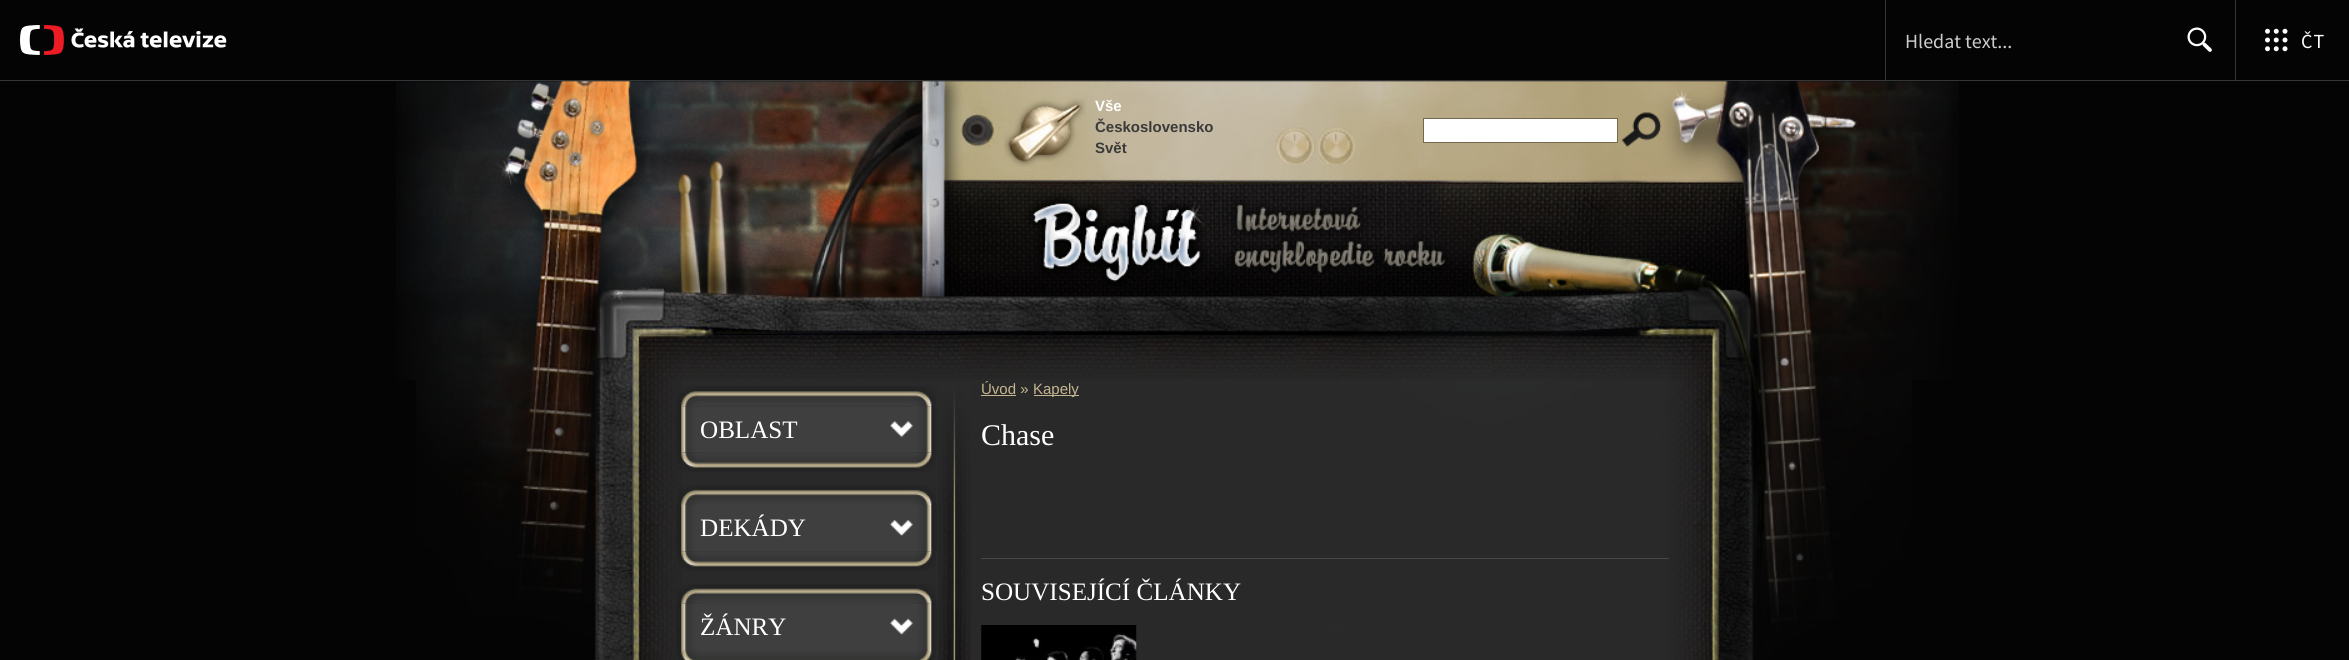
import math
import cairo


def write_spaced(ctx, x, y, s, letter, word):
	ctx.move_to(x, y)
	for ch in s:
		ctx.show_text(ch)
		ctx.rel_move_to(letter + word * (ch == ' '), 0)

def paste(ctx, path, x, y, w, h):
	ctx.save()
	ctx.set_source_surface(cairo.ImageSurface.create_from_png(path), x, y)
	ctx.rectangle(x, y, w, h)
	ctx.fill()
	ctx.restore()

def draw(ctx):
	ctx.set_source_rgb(0.016, 0.016, 0.016)
	ctx.paint()
	ctx.set_source_rgb(0.212, 0.212, 0.212)
	ctx.rectangle(0, 80, 2349, 1)
	ctx.fill()
	paste(ctx, 'media/1.png', 20, 25, 207, 30)
	ctx.rectangle(1885, 0, 1, 80)
	ctx.fill()
	ctx.select_font_face('Source Sans Pro')
	ctx.set_font_size(20)
	ctx.set_source_rgb(0.804, 0.804, 0.804)
	ctx.move_to(1905, 48)
	ctx.show_text('Hledat text...')
	paste(ctx, 'media/2.png', 2187, 27, 25, 25)
	ctx.set_source_rgb(0.212, 0.212, 0.212)
	ctx.rectangle(2235, 0, 1, 80)
	ctx.fill()
	paste(ctx, 'media/3.png', 2265, 28, 23, 24)
	ctx.set_source_rgb(1, 1, 1)
	write_spaced(ctx, 2301, 48, 'ČT', 1, 0)
	paste(ctx, 'media/4.png', 396, 81, 1563, 299)
	paste(ctx, 'media/5.png', 1003, 98, 83, 69)
	ctx.select_font_face('Liberation Sans', cairo.FONT_SLANT_NORMAL, cairo.FONT_WEIGHT_BOLD)
	ctx.set_font_size(15)
	ctx.move_to(1095, 111)
	ctx.show_text('Vše')
	ctx.set_source_rgb(0.227, 0.227, 0.227)
	ctx.move_to(1095, 132)
	ctx.show_text('Československo')
	ctx.move_to(1095, 153)
	ctx.show_text('Svět')
	ctx.set_source_rgb(1, 1, 1)
	ctx.rectangle(1423.5, 118.5, 194, 24)
	ctx.fill_preserve()
	ctx.set_source_rgb(0.455, 0.412, 0.298)
	ctx.set_line_width(1)
	ctx.stroke()
	paste(ctx, 'media/6.png', 1621, 112, 41, 35)
	paste(ctx, 'media/7.png', 1023, 193, 185, 93)
	paste(ctx, 'media/8.png', 1222, 194, 233, 80)
	paste(ctx, 'media/9.png', 416, 380, 1496, 280)
	paste(ctx, 'media/10.png', 938, 640, 33, 20)
	paste(ctx, 'media/11.png', 938, 380, 33, 260)
	paste(ctx, 'media/12.png', 677, 386, 259, 21)
	paste(ctx, 'media/13.png', 676, 406, 261, 47)
	paste(ctx, 'media/14.png', 890, 421, 23, 17)
	ctx.select_font_face('Liberation Serif')
	ctx.set_font_size(25.1)
	ctx.set_source_rgb(1, 1, 1)
	ctx.move_to(700, 438)
	ctx.show_text('OBLAST')
	paste(ctx, 'media/15.png', 677, 452, 259, 20)
	paste(ctx, 'media/16.png', 677, 485, 259, 20)
	paste(ctx, 'media/17.png', 676, 505, 261, 47)
	paste(ctx, 'media/18.png', 890, 520, 23, 16)
	ctx.move_to(700, 536)
	ctx.show_text('DEKÁDY')
	paste(ctx, 'media/19.png', 677, 551, 259, 20)
	paste(ctx, 'media/20.png', 677, 584, 259, 20)
	paste(ctx, 'media/21.png', 676, 603, 261, 47)
	paste(ctx, 'media/22.png', 890, 618, 23, 17)
	ctx.move_to(700, 635)
	ctx.show_text('ŽÁNRY')
	paste(ctx, 'media/23.png', 677, 650, 259, 10)
	ctx.select_font_face('Liberation Sans')
	ctx.set_font_size(15)
	ctx.set_source_rgb(0.769, 0.714, 0.569)
	ctx.move_to(981, 394)
	ctx.show_text('Úvod »')
	ctx.rectangle(981, 395, 35, 1)
	ctx.fill()
	ctx.rectangle(1034, 395, 45, 1)
	ctx.fill()
	ctx.move_to(1033, 394)
	ctx.show_text('Kapely')
	ctx.select_font_face('Liberation Serif')
	ctx.set_font_size(30)
	ctx.set_source_rgb(1, 1, 1)
	ctx.move_to(981, 445)
	ctx.show_text('Chase')
	ctx.set_source_rgb(0.282, 0.282, 0.282)
	ctx.rectangle(981, 558, 688, 1)
	ctx.fill()
	ctx.set_font_size(25.1)
	ctx.set_source_rgb(1, 1, 1)
	ctx.move_to(981, 600)
	ctx.show_text('SOUVISEJÍCÍ ČLÁNKY')
	paste(ctx, 'media/24.png', 981, 625, 156, 35)


surface = cairo.ImageSurface(cairo.FORMAT_RGB24, 2349, 660)
ctx = cairo.Context(surface)
options = cairo.FontOptions()
options.set_hint_metrics(cairo.HINT_METRICS_OFF)
options.set_hint_style(cairo.HINT_STYLE_NONE)
ctx.set_font_options(options)
ctx.set_miter_limit(4)
draw(ctx)
surface.write_to_png('image.png')
